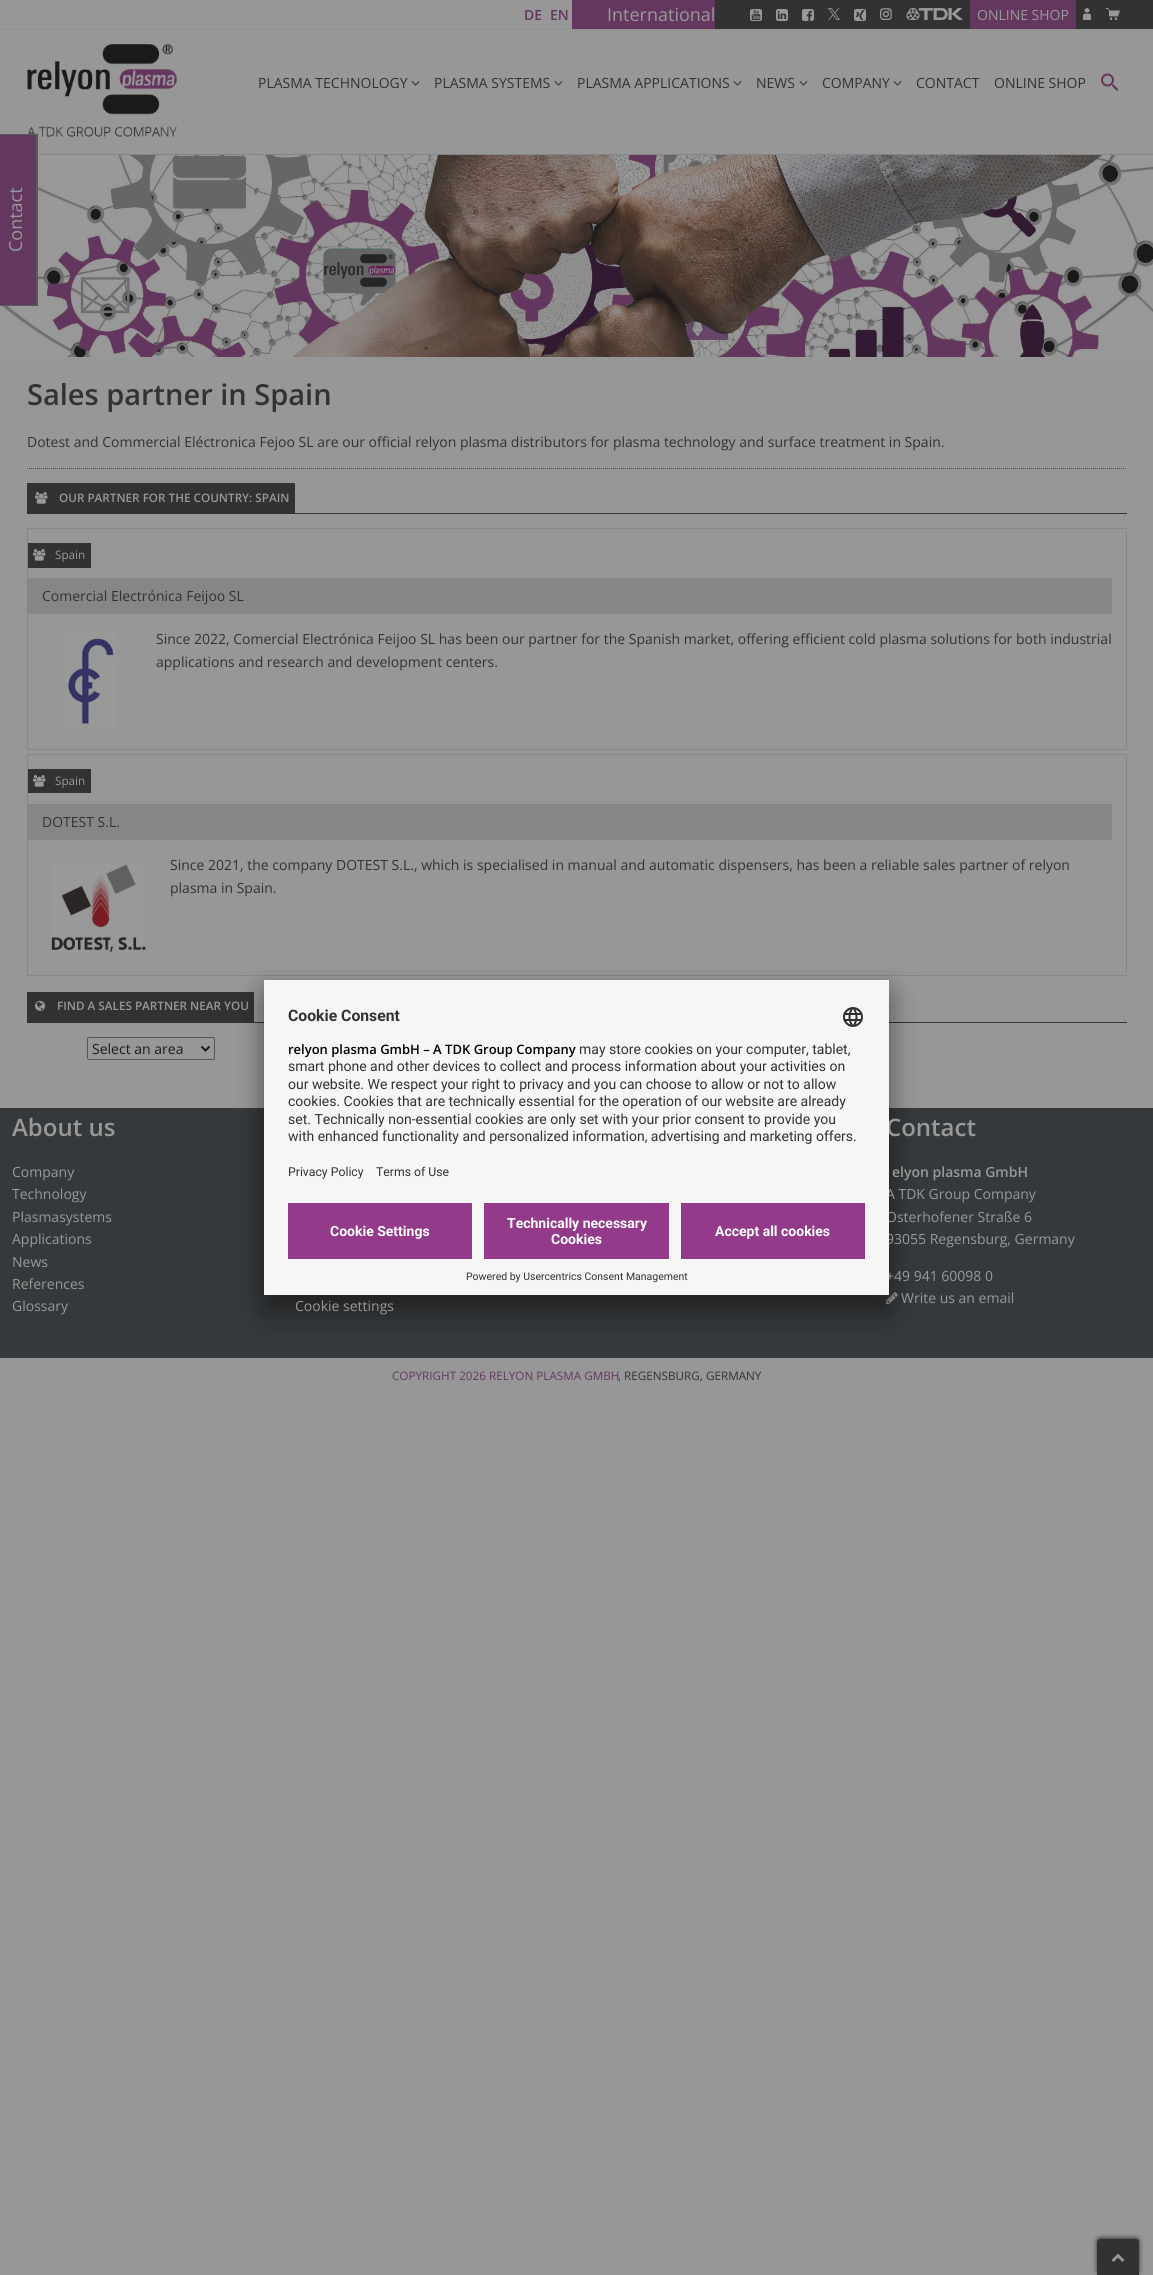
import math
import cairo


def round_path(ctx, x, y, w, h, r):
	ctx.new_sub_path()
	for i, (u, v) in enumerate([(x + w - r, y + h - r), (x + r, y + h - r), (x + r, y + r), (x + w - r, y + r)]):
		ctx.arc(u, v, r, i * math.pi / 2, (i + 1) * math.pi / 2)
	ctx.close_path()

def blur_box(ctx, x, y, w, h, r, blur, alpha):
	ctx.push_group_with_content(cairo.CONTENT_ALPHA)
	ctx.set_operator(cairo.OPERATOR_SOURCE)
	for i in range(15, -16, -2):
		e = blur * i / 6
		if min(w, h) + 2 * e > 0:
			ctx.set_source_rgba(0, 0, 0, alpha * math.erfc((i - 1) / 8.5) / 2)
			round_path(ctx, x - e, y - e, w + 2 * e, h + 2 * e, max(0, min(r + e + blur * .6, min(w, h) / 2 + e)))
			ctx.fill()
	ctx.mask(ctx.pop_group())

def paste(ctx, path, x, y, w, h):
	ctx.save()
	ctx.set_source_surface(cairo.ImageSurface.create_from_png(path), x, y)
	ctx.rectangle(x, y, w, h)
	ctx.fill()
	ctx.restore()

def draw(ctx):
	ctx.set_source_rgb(0.592, 0.592, 0.592)
	ctx.paint()
	ctx.set_source_rgb(0.518, 0.518, 0.518)
	ctx.rectangle(38, 154, 1115, 1)
	ctx.fill()
	ctx.set_source_rgb(0.196, 0.196, 0.196)
	ctx.rectangle(715, 0, 438, 29)
	ctx.fill()
	ctx.set_source_rgb(0.569, 0.569, 0.569)
	ctx.rectangle(0, 29, 1153, 1)
	ctx.fill()
	ctx.select_font_face('Open Sans SemiBold')
	ctx.set_font_size(14)
	ctx.set_source_rgb(0.392, 0.216, 0.373)
	ctx.move_to(524, 20)
	ctx.show_text('DE')
	ctx.move_to(550, 20)
	ctx.show_text('EN')
	ctx.rectangle(572, 0, 143, 29)
	ctx.fill()
	ctx.select_font_face('Open Sans')
	ctx.set_font_size(18)
	ctx.set_source_rgb(0.6, 0.6, 0.6)
	ctx.move_to(607, 21)
	ctx.show_text('International')
	paste(ctx, 'media/1.png', 750, 9, 12, 12)
	paste(ctx, 'media/2.png', 776, 9, 12, 12)
	paste(ctx, 'media/3.png', 802, 9, 12, 12)
	paste(ctx, 'media/4.png', 828, 8, 12, 12)
	paste(ctx, 'media/5.png', 854, 9, 12, 12)
	paste(ctx, 'media/6.png', 880, 8, 12, 12)
	paste(ctx, 'media/7.png', 906, 8, 57, 12)
	ctx.set_source_rgb(0.392, 0.216, 0.373)
	ctx.rectangle(970, 0, 106, 29)
	ctx.fill()
	ctx.set_font_size(14)
	ctx.set_source_rgb(0.6, 0.6, 0.6)
	ctx.move_to(977, 20)
	ctx.show_text('ONLINE SHOP')
	paste(ctx, 'media/8.png', 1083, 8, 8, 12)
	paste(ctx, 'media/9.png', 1105, 8, 15, 12)
	paste(ctx, 'media/10.png', 27, 44, 150, 93)
	ctx.set_source_rgb(0.196, 0.196, 0.196)
	ctx.move_to(258, 88)
	ctx.show_text('PLASMA TECHNOLOGY')
	paste(ctx, 'media/11.png', 411, 81, 9, 5)
	ctx.move_to(434, 88)
	ctx.show_text('PLASMA SYSTEMS')
	paste(ctx, 'media/11.png', 554, 81, 9, 5)
	ctx.move_to(577, 88)
	ctx.show_text('PLASMA APPLICATIONS')
	paste(ctx, 'media/11.png', 733, 81, 9, 5)
	ctx.move_to(756, 88)
	ctx.show_text('NEWS')
	paste(ctx, 'media/11.png', 799, 81, 9, 5)
	ctx.move_to(822, 88)
	ctx.show_text('COMPANY')
	paste(ctx, 'media/11.png', 893, 81, 9, 5)
	ctx.move_to(916, 88)
	ctx.show_text('CONTACT')
	ctx.move_to(994, 88)
	ctx.show_text('ONLINE SHOP')
	paste(ctx, 'media/12.png', 1101, 73, 18, 18)
	paste(ctx, 'media/13.png', 0, 155, 1153, 202)
	ctx.set_source_rgb(0.392, 0.216, 0.373)
	ctx.rectangle(0, 135, 36, 170)
	ctx.fill()
	ctx.set_source_rgb(0.349, 0.349, 0.349)
	ctx.rectangle(0, 134, 38, 1)
	ctx.rectangle(36, 134, 2, 172)
	ctx.rectangle(0, 305, 38, 1)
	ctx.fill()
	ctx.set_font_size(18)
	ctx.set_source_rgb(0.6, 0.6, 0.6)
	ctx.save()
	ctx.translate(22, 252)
	ctx.rotate(-90 * math.pi / 180)
	ctx.move_to(0, 0)
	ctx.show_text('Contact')
	ctx.restore()
	ctx.select_font_face('Open Sans SemiBold')
	ctx.set_font_size(29)
	ctx.set_source_rgb(0.196, 0.196, 0.196)
	ctx.move_to(27, 405)
	ctx.show_text('Sales partner in Spain')
	ctx.select_font_face('Open Sans')
	ctx.set_font_size(14)
	ctx.move_to(27, 447)
	ctx.show_text('Dotest and Commercial Eléctronica Fejoo SL are our official relyon plasma distributors for plasma technology and surface treatment in Spain.')
	ctx.new_path()
	ctx.move_to(27, 468.5)
	ctx.line_to(1127, 468.5)
	ctx.set_source_rgb(0.392, 0.216, 0.373)
	ctx.set_line_width(1)
	ctx.set_dash([1, 1])
	ctx.stroke()
	ctx.set_source_rgb(0.196, 0.196, 0.196)
	ctx.rectangle(27, 513, 1100, 1)
	ctx.fill()
	ctx.rectangle(27, 483, 268, 30)
	ctx.fill()
	paste(ctx, 'media/14.png', 35, 492, 13, 12)
	ctx.select_font_face('Open Sans SemiBold')
	ctx.set_font_size(11.7)
	ctx.set_source_rgb(0.6, 0.6, 0.6)
	ctx.move_to(59, 502)
	ctx.show_text('OUR PARTNER FOR THE COUNTRY: SPAIN')
	ctx.rectangle(27.5, 528.5, 1099, 221)
	ctx.set_source_rgb(0.525, 0.525, 0.525)
	ctx.set_dash([])
	ctx.stroke()
	ctx.set_source_rgb(0.196, 0.196, 0.196)
	ctx.rectangle(28, 543, 63, 25)
	ctx.fill()
	paste(ctx, 'media/14.png', 33, 549, 13, 12)
	ctx.select_font_face('Open Sans')
	ctx.set_source_rgb(0.6, 0.6, 0.6)
	ctx.move_to(55, 559)
	ctx.show_text('Spain')
	ctx.set_source_rgb(0.525, 0.525, 0.525)
	ctx.rectangle(28, 578, 1084, 36)
	ctx.fill()
	ctx.set_font_size(14)
	ctx.set_source_rgb(0.196, 0.196, 0.196)
	ctx.move_to(42, 601)
	ctx.show_text('Comercial Electrónica Feijoo SL')
	paste(ctx, 'media/15.png', 64, 632, 53, 96)
	ctx.move_to(156, 644)
	ctx.show_text('Since 2022, Comercial Electrónica Feijoo SL has been our partner for the Spanish market, offering efficient cold plasma solutions for both industrial')
	ctx.move_to(156, 667)
	ctx.show_text('applications and research and development centers.')
	ctx.rectangle(27.5, 754.5, 1099, 221)
	ctx.set_source_rgb(0.525, 0.525, 0.525)
	ctx.stroke()
	ctx.set_source_rgb(0.196, 0.196, 0.196)
	ctx.rectangle(28, 769, 63, 24)
	ctx.fill()
	paste(ctx, 'media/14.png', 33, 775, 13, 12)
	ctx.set_font_size(11.7)
	ctx.set_source_rgb(0.6, 0.6, 0.6)
	ctx.move_to(55, 785)
	ctx.show_text('Spain')
	ctx.set_source_rgb(0.525, 0.525, 0.525)
	ctx.rectangle(28, 804, 1084, 36)
	ctx.fill()
	ctx.set_font_size(14)
	ctx.set_source_rgb(0.196, 0.196, 0.196)
	ctx.move_to(42, 827)
	ctx.show_text('DOTEST S.L.')
	paste(ctx, 'media/16.png', 51, 864, 95, 88)
	ctx.move_to(170, 870)
	ctx.show_text('Since 2021, the company DOTEST S.L., which is specialised in manual and automatic dispensers, has been a reliable sales partner of relyon')
	ctx.move_to(170, 893)
	ctx.show_text('plasma in Spain.')
	ctx.rectangle(27, 1022, 1100, 1)
	ctx.fill()
	ctx.rectangle(27, 992, 227, 30)
	ctx.fill()
	paste(ctx, 'media/17.png', 35, 1000, 10, 11)
	ctx.select_font_face('Open Sans SemiBold')
	ctx.set_font_size(11.7)
	ctx.set_source_rgb(0.6, 0.6, 0.6)
	ctx.move_to(57, 1010)
	ctx.show_text('FIND A SALES PARTNER NEAR YOU')
	round_path(ctx, 87.5, 1037.5, 127, 22, 1.5)
	ctx.set_source_rgb(0.333, 0.333, 0.333)
	ctx.stroke()
	ctx.new_path()
	ctx.move_to(201.5, 1046.5)
	ctx.line_to(205.5, 1050.5)
	ctx.line_to(209.5, 1046.5)
	ctx.set_source_rgb(0.102, 0.102, 0.102)
	ctx.set_line_width(2)
	ctx.stroke()
	ctx.select_font_face('Open Sans')
	ctx.set_font_size(14)
	ctx.move_to(92, 1054)
	ctx.show_text('Select an area')
	ctx.set_source_rgb(0.212, 0.224, 0.231)
	ctx.rectangle(0, 1108, 295, 250)
	ctx.fill()
	ctx.rectangle(886, 1108, 267, 250)
	ctx.fill()
	paste(ctx, 'media/19.png', 886, 1292, 12, 12)
	ctx.rectangle(295, 1295, 591, 63)
	ctx.fill()
	ctx.set_source_rgb(0, 0, 0)
	blur_box(ctx, 264, 1000, 625, 315, 0, 14, 0.3)
	blur_box(ctx, 264, 985, 625, 315, 0, 13, 0.22)
	ctx.select_font_face('Open Sans SemiBold')
	ctx.set_font_size(24)
	ctx.set_source_rgb(0.6, 0.6, 0.6)
	ctx.move_to(886, 1136)
	ctx.show_text('Contact')
	ctx.select_font_face('Open Sans')
	ctx.set_font_size(14)
	for x, y, s in [
		(886, 1199, 'A TDK Group Company'),
		(886, 1222, 'Osterhofener Straße 6'),
		(886, 1244, '93055 Regensburg, Germany'),
		(886, 1281, '+49 941 60098 0'),
	]:
		ctx.move_to(x, y)
		ctx.show_text(s)
	ctx.set_source_rgb(0.961, 0.961, 0.961)
	ctx.rectangle(264, 980, 625, 315)
	ctx.fill()
	ctx.select_font_face('Roboto', cairo.FONT_SLANT_NORMAL, cairo.FONT_WEIGHT_BOLD)
	ctx.set_font_size(15.75)
	ctx.set_source_rgb(0.196, 0.196, 0.196)
	ctx.move_to(288, 1021)
	ctx.show_text('Cookie Consent')
	paste(ctx, 'media/18.png', 843, 1007, 20, 20)
	ctx.select_font_face('Open Sans SemiBold')
	ctx.set_font_size(13)
	ctx.set_source_rgb(0, 0, 0)
	ctx.move_to(288, 1054)
	ctx.show_text('relyon plasma GmbH – A TDK Group Company')
	ctx.select_font_face('Roboto')
	ctx.set_font_size(14)
	ctx.set_source_rgb(0.196, 0.196, 0.196)
	for x, y, s in [
		(579, 1054, 'may store cookies on your computer, tablet,'),
		(288, 1071, 'smart phone and other devices to collect and process information about your activities on'),
		(288, 1089, 'our website. We respect your right to privacy and you can choose to allow or not to allow'),
		(288, 1106, 'cookies. Cookies that are technically essential for the operation of our website are already'),
		(288, 1124, 'set. Technically non-essential cookies are only set with your prior consent to provide you'),
		(288, 1141, 'with enhanced functionality and personalized information, advertising and marketing offers.'),
	]:
		ctx.move_to(x, y)
		ctx.show_text(s)
	ctx.set_font_size(12.25)
	ctx.move_to(288, 1176)
	ctx.show_text('Privacy Policy')
	ctx.move_to(376, 1176)
	ctx.show_text('Terms of Use')
	ctx.set_source_rgb(0.58, 0.227, 0.541)
	ctx.rectangle(288, 1203, 184, 56)
	ctx.fill()
	ctx.select_font_face('Roboto', cairo.FONT_SLANT_NORMAL, cairo.FONT_WEIGHT_BOLD)
	ctx.set_font_size(14)
	ctx.set_source_rgb(1, 1, 1)
	ctx.move_to(330, 1236)
	ctx.show_text('Cookie Settings')
	ctx.set_source_rgb(0.58, 0.227, 0.541)
	ctx.rectangle(484, 1203, 185, 56)
	ctx.fill()
	ctx.set_source_rgb(1, 1, 1)
	ctx.move_to(507, 1228)
	ctx.show_text('Technically necessary')
	ctx.move_to(551, 1244)
	ctx.show_text('Cookies')
	ctx.set_source_rgb(0.58, 0.227, 0.541)
	ctx.rectangle(681, 1203, 184, 56)
	ctx.fill()
	ctx.set_source_rgb(1, 1, 1)
	ctx.move_to(715, 1236)
	ctx.show_text('Accept all cookies')
	ctx.select_font_face('Roboto')
	ctx.set_font_size(10.5)
	ctx.set_source_rgb(0.196, 0.196, 0.196)
	ctx.move_to(466, 1280)
	ctx.show_text('Powered by Usercentrics Consent Management')
	ctx.select_font_face('Open Sans SemiBold')
	ctx.set_font_size(24)
	ctx.set_source_rgb(0.6, 0.6, 0.6)
	ctx.move_to(12, 1136)
	ctx.show_text('About us')
	ctx.select_font_face('Open Sans')
	ctx.set_font_size(14)
	for x, y, s in [
		(12, 1177, 'Company'),
		(12, 1199, 'Technology'),
		(12, 1222, 'Plasmasystems'),
		(12, 1244, 'Applications'),
		(12, 1267, 'News'),
		(12, 1289, 'References'),
		(12, 1311, 'Glossary'),
	]:
		ctx.move_to(x, y)
		ctx.show_text(s)
	ctx.select_font_face('Open Sans SemiBold')
	ctx.move_to(892, 1177)
	ctx.show_text('elyon plasma GmbH')
	ctx.select_font_face('Open Sans')
	ctx.move_to(901, 1303)
	ctx.show_text('Write us an email')
	ctx.move_to(295, 1311)
	ctx.show_text('Cookie settings')
	ctx.set_font_size(11.7)
	ctx.set_source_rgb(0.392, 0.216, 0.373)
	ctx.move_to(392, 1380)
	ctx.show_text('COPYRIGHT 2026 RELYON PLASMA GMBH')
	ctx.set_source_rgb(0.196, 0.196, 0.196)
	ctx.move_to(618, 1380)
	ctx.show_text(', REGENSBURG, GERMANY')
	ctx.set_source_rgb(0.196, 0.196, 0.196)
	blur_box(ctx, 1097, 2238, 42, 36, 3, 2.5, 1)
	ctx.set_source_rgb(0.196, 0.196, 0.196)
	ctx.new_path()
	ctx.move_to(1100, 2239)
	ctx.line_to(1136, 2239)
	ctx.curve_to(1137.5, 2239, 1139, 2240.5, 1139, 2242)
	ctx.line_to(1139, 2275)
	ctx.line_to(1097, 2275)
	ctx.line_to(1097, 2242)
	ctx.curve_to(1097, 2240.5, 1098.5, 2239, 1100, 2239)
	ctx.close_path()
	ctx.fill()
	paste(ctx, 'media/20.png', 1111, 2253, 14, 9)


surface = cairo.ImageSurface(cairo.FORMAT_RGB24, 1153, 2275)
ctx = cairo.Context(surface)
options = cairo.FontOptions()
options.set_hint_metrics(cairo.HINT_METRICS_OFF)
options.set_hint_style(cairo.HINT_STYLE_NONE)
ctx.set_font_options(options)
ctx.set_miter_limit(4)
draw(ctx)
surface.write_to_png('image.png')
